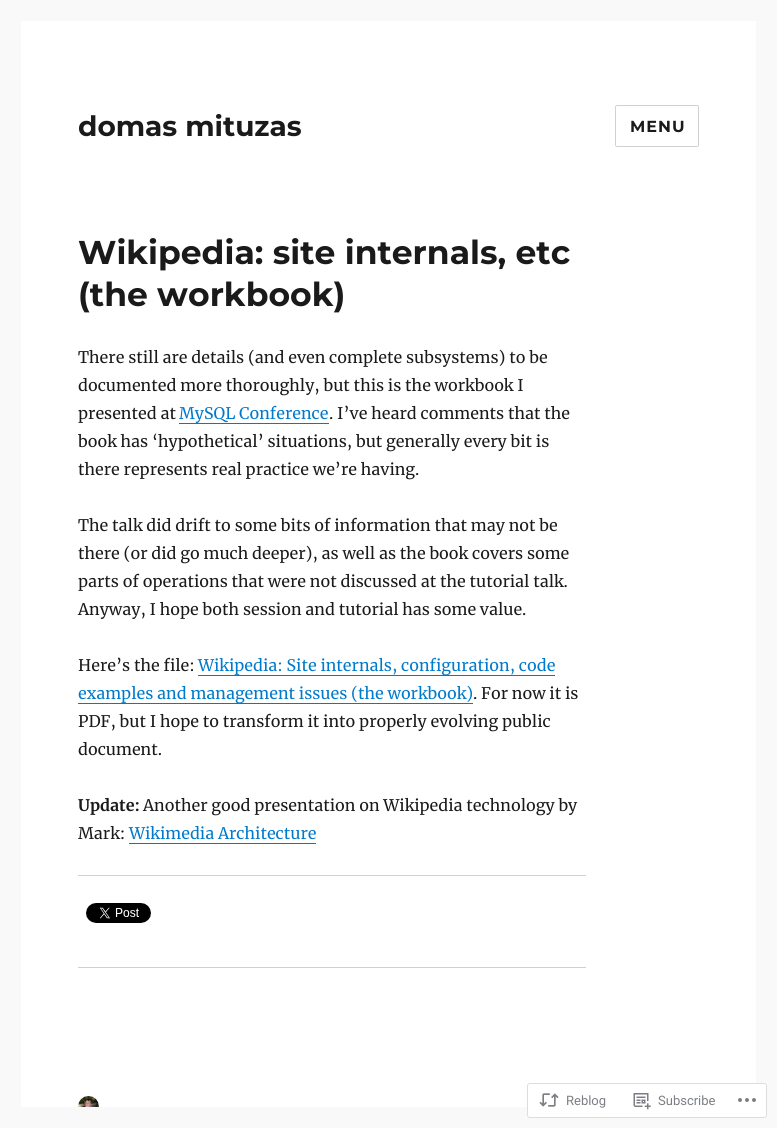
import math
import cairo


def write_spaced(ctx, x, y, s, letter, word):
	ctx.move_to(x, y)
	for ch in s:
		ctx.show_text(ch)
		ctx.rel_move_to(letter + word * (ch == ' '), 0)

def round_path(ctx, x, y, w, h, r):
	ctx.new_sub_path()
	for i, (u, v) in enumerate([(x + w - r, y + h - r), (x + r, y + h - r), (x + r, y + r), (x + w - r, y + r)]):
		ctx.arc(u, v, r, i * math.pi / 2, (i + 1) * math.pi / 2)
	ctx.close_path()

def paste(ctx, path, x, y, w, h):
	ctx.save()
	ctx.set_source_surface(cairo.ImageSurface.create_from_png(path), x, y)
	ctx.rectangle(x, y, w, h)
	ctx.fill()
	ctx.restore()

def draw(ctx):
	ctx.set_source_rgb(0.973, 0.973, 0.973)
	ctx.paint()
	ctx.set_source_rgb(1, 1, 1)
	ctx.rectangle(21, 21, 735, 1086)
	ctx.fill()
	ctx.select_font_face('Montserrat Thin')
	ctx.set_font_size(28)
	ctx.set_source_rgb(0.102, 0.102, 0.102)
	ctx.move_to(78, 136)
	ctx.show_text('domas mituzas')
	round_path(ctx, 615.5, 105.5, 83, 41, 1.5)
	ctx.set_source_rgb(0.82, 0.82, 0.82)
	ctx.set_line_width(1)
	ctx.stroke()
	ctx.set_font_size(16)
	ctx.set_source_rgb(0.102, 0.102, 0.102)
	write_spaced(ctx, 630, 132, 'MENU', 1, 0)
	ctx.set_font_size(33)
	ctx.move_to(78, 264)
	ctx.show_text('Wikipedia: site internals, etc')
	ctx.move_to(78, 306)
	ctx.show_text('(the workbook)')
	ctx.select_font_face('Merriweather')
	ctx.set_font_size(16)
	for x, y, s in [
		(78, 363, 'There still are details (and even complete subsystems) to be'),
		(78, 391, 'documented more thoroughly, but this is the workbook I'),
		(78, 419, 'presented at'),
	]:
		ctx.move_to(x, y)
		ctx.show_text(s)
	ctx.set_source_rgb(0, 0.478, 0.8)
	ctx.move_to(179, 419)
	ctx.show_text('MySQL Conference')
	ctx.rectangle(179, 423, 150, 1)
	ctx.fill()
	ctx.set_source_rgb(0.102, 0.102, 0.102)
	for x, y, s in [
		(329, 419, '. I’ve heard comments that the'),
		(78, 447, 'book has ‘hypothetical’ situations, but generally every bit is'),
		(78, 475, 'there represents real practice we’re having.'),
		(78, 531, 'The talk did drift to some bits of information that may not be'),
		(78, 559, 'there (or did go much deeper), as well as the book covers some'),
		(78, 587, 'parts of operations that were not discussed at the tutorial talk.'),
		(78, 615, 'Anyway, I hope both session and tutorial has some value.'),
		(78, 671, 'Here’s the file:'),
	]:
		ctx.move_to(x, y)
		ctx.show_text(s)
	ctx.set_source_rgb(0, 0.478, 0.8)
	ctx.rectangle(198, 675, 357, 1)
	ctx.fill()
	ctx.move_to(198, 671)
	ctx.show_text('Wikipedia: Site internals, configuration, code')
	ctx.rectangle(78, 703, 395, 1)
	ctx.fill()
	ctx.move_to(78, 699)
	ctx.show_text('examples and management issues (the workbook)')
	ctx.set_source_rgb(0.102, 0.102, 0.102)
	for x, y, s in [
		(473, 699, '. For now it is'),
		(78, 727, 'PDF, but I hope to transform it into properly evolving public'),
		(78, 755, 'document.'),
	]:
		ctx.move_to(x, y)
		ctx.show_text(s)
	ctx.select_font_face('Merriweather', cairo.FONT_SLANT_NORMAL, cairo.FONT_WEIGHT_BOLD)
	ctx.move_to(78, 811)
	ctx.show_text('Update:')
	ctx.select_font_face('Merriweather')
	ctx.move_to(143, 811)
	ctx.show_text('Another good presentation on Wikipedia technology by')
	ctx.move_to(78, 839)
	ctx.show_text('Mark:')
	ctx.set_source_rgb(0, 0.478, 0.8)
	ctx.move_to(129, 839)
	ctx.show_text('Wikimedia Architecture')
	ctx.rectangle(129, 843, 187, 1)
	ctx.fill()
	ctx.set_source_rgb(0.82, 0.82, 0.82)
	ctx.rectangle(78, 875, 508, 1)
	ctx.fill()
	paste(ctx, 'media/1.png', 86, 903, 65, 20)
	ctx.rectangle(78, 967, 508, 1)
	ctx.fill()
	paste(ctx, 'media/2.png', 78, 1096, 21, 11)
	ctx.set_source_rgba(1, 1, 1, 0.98)
	round_path(ctx, 527, 1083, 240, 35, 3)
	ctx.fill()
	round_path(ctx, 527.5, 1083.5, 239, 34, 2.5)
	ctx.set_source_rgba(0.863, 0.863, 0.871, 0.98)
	ctx.stroke()
	paste(ctx, 'media/3.png', 539, 1093, 20, 14)
	ctx.select_font_face('Roboto')
	ctx.set_font_size(13)
	ctx.set_source_rgb(0.482, 0.498, 0.518)
	ctx.move_to(566, 1105)
	ctx.show_text('Reblog')
	paste(ctx, 'media/4.png', 633, 1093, 18, 17)
	ctx.move_to(658, 1105)
	ctx.show_text('Subscribe')
	paste(ctx, 'media/5.png', 738, 1098, 18, 4)


surface = cairo.ImageSurface(cairo.FORMAT_RGB24, 777, 1128)
ctx = cairo.Context(surface)
options = cairo.FontOptions()
options.set_hint_metrics(cairo.HINT_METRICS_OFF)
options.set_hint_style(cairo.HINT_STYLE_NONE)
ctx.set_font_options(options)
ctx.set_miter_limit(4)
draw(ctx)
surface.write_to_png('image.png')
